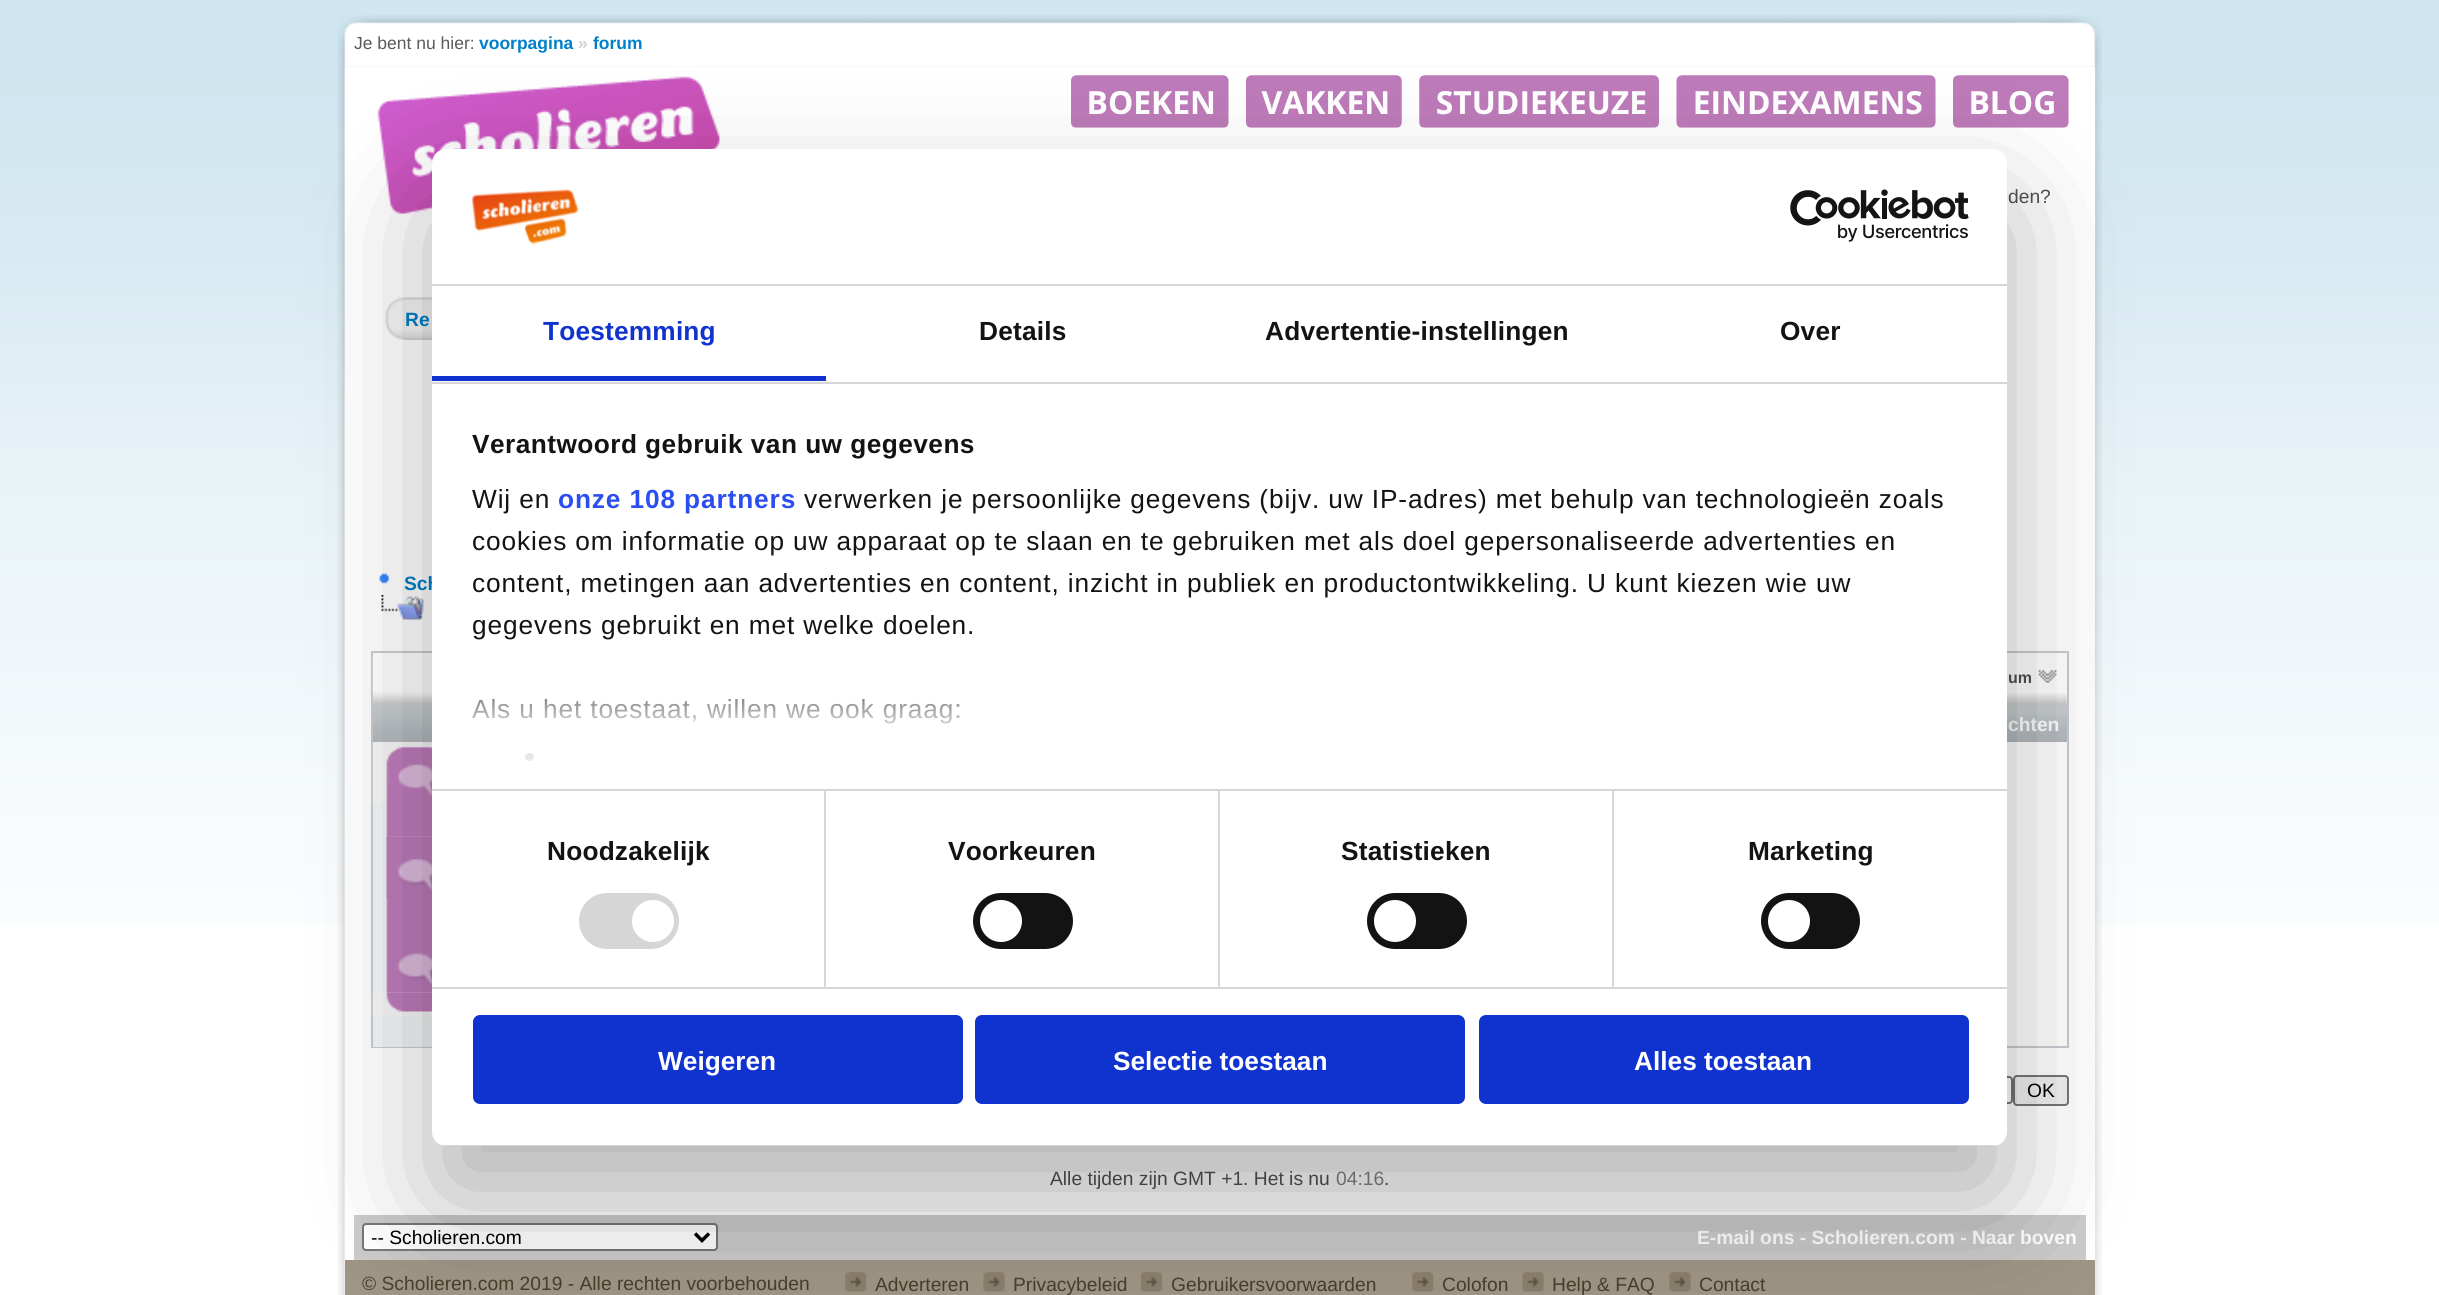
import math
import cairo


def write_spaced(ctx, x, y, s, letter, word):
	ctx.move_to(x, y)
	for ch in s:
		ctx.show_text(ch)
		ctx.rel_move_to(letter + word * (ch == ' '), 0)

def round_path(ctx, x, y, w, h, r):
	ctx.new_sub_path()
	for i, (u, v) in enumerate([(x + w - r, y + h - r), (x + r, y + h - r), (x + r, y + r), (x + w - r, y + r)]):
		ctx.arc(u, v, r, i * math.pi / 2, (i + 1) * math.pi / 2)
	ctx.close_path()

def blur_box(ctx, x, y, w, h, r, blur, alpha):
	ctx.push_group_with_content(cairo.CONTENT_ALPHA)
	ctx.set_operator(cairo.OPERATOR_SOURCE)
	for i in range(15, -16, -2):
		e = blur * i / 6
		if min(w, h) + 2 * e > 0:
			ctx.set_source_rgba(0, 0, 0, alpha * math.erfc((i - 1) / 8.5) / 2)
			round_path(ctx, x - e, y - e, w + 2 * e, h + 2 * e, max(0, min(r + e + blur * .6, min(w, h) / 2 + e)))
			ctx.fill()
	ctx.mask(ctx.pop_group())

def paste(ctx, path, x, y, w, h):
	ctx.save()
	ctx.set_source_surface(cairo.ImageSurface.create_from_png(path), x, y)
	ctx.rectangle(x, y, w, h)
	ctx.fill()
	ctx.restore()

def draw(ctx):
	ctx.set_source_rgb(1, 1, 1)
	ctx.paint()
	paste(ctx, 'media/1.png', 0, 0, 2439, 924)
	paste(ctx, 'media/2.png', 337, 15, 1765, 52)
	ctx.select_font_face('Liberation Sans')
	ctx.set_font_size(17.5)
	ctx.set_source_rgb(0.353, 0.353, 0.353)
	ctx.move_to(354, 49)
	ctx.show_text('Je bent nu hier:')
	ctx.select_font_face('Liberation Sans', cairo.FONT_SLANT_NORMAL, cairo.FONT_WEIGHT_BOLD)
	ctx.set_source_rgb(0, 0.502, 0.788)
	ctx.move_to(479, 49)
	ctx.show_text('voorpagina')
	ctx.set_source_rgb(0.824, 0.824, 0.824)
	ctx.move_to(578, 49)
	ctx.show_text('»')
	ctx.set_source_rgb(0, 0.502, 0.788)
	ctx.move_to(593, 49)
	ctx.show_text('forum')
	paste(ctx, 'media/3.png', 337, 66, 1765, 1229)
	ctx.set_source_rgb(1, 1, 1)
	ctx.rectangle(345, 67, 1750, 1193)
	ctx.fill()
	paste(ctx, 'media/4.png', 377, 66, 343, 188)
	paste(ctx, 'media/5.png', 1070, 75, 999, 53)
	ctx.select_font_face('Liberation Sans')
	ctx.set_font_size(19.25)
	ctx.set_source_rgb(0.318, 0.318, 0.318)
	ctx.move_to(2008, 203)
	ctx.show_text('den?')
	paste(ctx, 'media/6.png', 385, 297, 19, 43)
	ctx.set_source_rgb(0.835, 0.835, 0.835)
	ctx.rectangle(404, 298, 28, 42)
	ctx.fill()
	paste(ctx, 'media/7.png', 404, 297, 28, 41)
	ctx.select_font_face('Liberation Sans', cairo.FONT_SLANT_NORMAL, cairo.FONT_WEIGHT_BOLD)
	ctx.set_source_rgb(0, 0.502, 0.788)
	ctx.move_to(405, 326)
	ctx.show_text('Re')
	paste(ctx, 'media/8.png', 379, 573, 10, 11)
	ctx.move_to(404, 590)
	ctx.show_text('Sch')
	paste(ctx, 'media/9.png', 381, 595, 43, 25)
	ctx.set_source_rgb(0.78, 0.8, 0.816)
	ctx.rectangle(371, 651, 1698, 2)
	ctx.rectangle(2067, 651, 2, 54)
	ctx.rectangle(371, 651, 2, 54)
	ctx.fill()
	paste(ctx, 'media/10.png', 372, 656, 60, 49)
	paste(ctx, 'media/11.png', 2007, 693, 60, 12)
	ctx.set_font_size(16)
	ctx.set_source_rgb(0.318, 0.318, 0.318)
	ctx.move_to(2008, 683)
	ctx.show_text('um')
	paste(ctx, 'media/12.png', 2038, 670, 19, 13)
	ctx.rectangle(372, 706, 1696, 341)
	ctx.set_source_rgb(0.78, 0.8, 0.816)
	ctx.stroke()
	paste(ctx, 'media/13.png', 372, 707, 60, 35)
	ctx.rectangle(2007, 707, 60, 35)
	ctx.fill()
	paste(ctx, 'media/14.png', 2007, 715, 60, 27)
	ctx.set_font_size(19.25)
	ctx.set_source_rgb(1, 1, 1)
	ctx.move_to(2008, 731)
	ctx.show_text('chten')
	ctx.set_source_rgb(0.945, 0.957, 0.961)
	ctx.rectangle(373, 803, 59, 34)
	ctx.fill()
	paste(ctx, 'media/15.png', 386, 803, 46, 34)
	paste(ctx, 'media/16.png', 372, 742, 60, 61)
	ctx.rectangle(373, 837, 15, 94)
	ctx.fill()
	paste(ctx, 'media/17.png', 386, 836, 46, 95)
	paste(ctx, 'media/18.png', 386, 836, 46, 62)
	ctx.rectangle(373, 931, 59, 116)
	ctx.fill()
	paste(ctx, 'media/19.png', 386, 931, 46, 62)
	paste(ctx, 'media/20.png', 372, 992, 60, 25)
	round_path(ctx, 1487, 1077, 525, 26, 3)
	ctx.set_source_rgb(0.463, 0.463, 0.463)
	ctx.stroke()
	ctx.set_source_rgb(0.937, 0.937, 0.937)
	round_path(ctx, 2014, 1076, 54, 29, 3)
	ctx.fill_preserve()
	ctx.set_source_rgb(0.463, 0.463, 0.463)
	ctx.stroke()
	ctx.select_font_face('Liberation Sans')
	ctx.set_source_rgb(0, 0, 0)
	ctx.move_to(2027, 1097)
	ctx.show_text('OK')
	ctx.set_source_rgb(0.318, 0.318, 0.318)
	ctx.move_to(1050, 1185)
	ctx.show_text('Alle tijden zijn GMT +1. Het is nu')
	ctx.set_source_rgb(0.514, 0.514, 0.514)
	ctx.move_to(1336, 1185)
	ctx.show_text('04:16')
	ctx.set_source_rgb(0.318, 0.318, 0.318)
	ctx.move_to(1384, 1185)
	ctx.show_text('.')
	ctx.set_source_rgb(0.792, 0.792, 0.792)
	ctx.rectangle(354, 1215, 1732, 45)
	ctx.fill()
	ctx.set_source_rgb(1, 1, 1)
	round_path(ctx, 363, 1224, 354, 26, 3)
	ctx.fill_preserve()
	ctx.set_source_rgb(0.463, 0.463, 0.463)
	ctx.stroke()
	ctx.new_path()
	ctx.move_to(695, 1233.5)
	ctx.line_to(702, 1240.5)
	ctx.line_to(709, 1233.5)
	ctx.set_source_rgb(0, 0, 0)
	ctx.set_line_width(3.5)
	ctx.stroke()
	ctx.move_to(371, 1244)
	ctx.show_text('-- Scholieren.com')
	ctx.select_font_face('Liberation Sans', cairo.FONT_SLANT_NORMAL, cairo.FONT_WEIGHT_BOLD)
	ctx.set_source_rgb(1, 1, 1)
	ctx.move_to(1697, 1244)
	ctx.show_text('E-mail ons - Scholieren.com - Naar boven')
	ctx.set_source_rgb(0.62, 0.584, 0.522)
	ctx.rectangle(345, 1260, 1750, 35)
	ctx.fill()
	ctx.select_font_face('Liberation Sans')
	ctx.set_source_rgb(0.29, 0.243, 0.173)
	ctx.move_to(362, 1290)
	ctx.show_text('© Scholieren.com 2019 - Alle rechten voorbehouden')
	paste(ctx, 'media/21.png', 845, 1272, 22, 20)
	ctx.move_to(875, 1291)
	ctx.show_text('Adverteren')
	paste(ctx, 'media/22.png', 983, 1272, 22, 20)
	ctx.move_to(1013, 1291)
	ctx.show_text('Privacybeleid')
	paste(ctx, 'media/23.png', 1141, 1272, 21, 20)
	ctx.move_to(1171, 1291)
	ctx.show_text('Gebruikersvoorwaarden')
	paste(ctx, 'media/24.png', 1412, 1272, 22, 20)
	ctx.move_to(1442, 1291)
	ctx.show_text('Colofon')
	paste(ctx, 'media/25.png', 1522, 1272, 22, 20)
	ctx.move_to(1552, 1291)
	ctx.show_text('Help & FAQ')
	paste(ctx, 'media/22.png', 1669, 1272, 22, 20)
	ctx.move_to(1699, 1291)
	ctx.show_text('Contact')
	ctx.set_source_rgb(0, 0, 0)
	blur_box(ctx, 432, 205, 1575, 997, 14, 59.5, 0.3)
	ctx.set_source_rgb(1, 1, 1)
	round_path(ctx, 432, 149, 1575, 997, 14)
	ctx.fill()
	ctx.set_source_rgb(0.839, 0.839, 0.839)
	ctx.rectangle(432, 284, 1575, 2)
	ctx.fill()
	paste(ctx, 'media/26.png', 471, 188, 108, 57)
	paste(ctx, 'media/27.png', 1790, 189, 179, 53)
	ctx.rectangle(432, 382, 1575, 2)
	ctx.fill()
	ctx.set_source_rgb(0.063, 0.196, 0.812)
	ctx.rectangle(432, 376, 394, 5)
	ctx.fill()
	ctx.select_font_face('Liberation Sans', cairo.FONT_SLANT_NORMAL, cairo.FONT_WEIGHT_BOLD)
	ctx.set_font_size(26.25)
	write_spaced(ctx, 543, 340, 'Toestemming', 0.2, 0)
	ctx.set_source_rgb(0.078, 0.078, 0.078)
	for x, y, s in [
		(979, 340, 'Details'),
		(1265, 340, 'Advertentie-instellingen'),
		(1780, 340, 'Over'),
	]:
		write_spaced(ctx, x, y, s, 0.2, 0)
	ctx.set_source_rgb(0.839, 0.839, 0.839)
	ctx.rectangle(432, 789, 1575, 2)
	ctx.fill()
	ctx.set_source_rgb(0.078, 0.078, 0.078)
	write_spaced(ctx, 472, 453, 'Verantwoord gebruik van uw gegevens', 0.45, 0)
	ctx.select_font_face('Liberation Sans')
	write_spaced(ctx, 472, 508, 'Wij en', 0.88, 0)
	ctx.select_font_face('Liberation Sans', cairo.FONT_SLANT_NORMAL, cairo.FONT_WEIGHT_BOLD)
	ctx.set_source_rgb(0.165, 0.306, 0.937)
	write_spaced(ctx, 558, 508, 'onze 108 partners', 0.88, 0)
	ctx.select_font_face('Liberation Sans')
	ctx.set_source_rgb(0.078, 0.078, 0.078)
	for x, y, s in [
		(804, 508, 'verwerken je persoonlijke gegevens (bijv. uw IP-adres) met behulp van technologieën zoals'),
		(472, 550, 'cookies om informatie op uw apparaat op te slaan en te gebruiken met als doel gepersonaliseerde advertenties en'),
		(472, 592, 'content, metingen aan advertenties en content, inzicht in publiek en productontwikkeling. U kunt kiezen wie uw'),
		(472, 634, 'gegevens gebruikt en met welke doelen.'),
		(472, 718, 'Als u het toestaat, willen we ook graag:'),
	]:
		write_spaced(ctx, x, y, s, 0.88, 0)
	round_path(ctx, 525, 753, 9, 8, 4)
	ctx.fill()
	gradient = cairo.LinearGradient(1202, 790, 1202, 658)
	gradient.add_color_stop_rgba(0, 1, 1, 1, 1)
	gradient.add_color_stop_rgba(0.5, 1, 1, 1, 0.8)
	gradient.add_color_stop_rgba(1, 1, 1, 1, 0)
	ctx.set_source(gradient)
	ctx.rectangle(471, 699, 488, 62)
	ctx.fill()
	ctx.set_source_rgb(0.839, 0.839, 0.839)
	ctx.rectangle(432, 987, 1575, 2)
	ctx.fill()
	ctx.rectangle(824, 791, 2, 196)
	ctx.fill()
	ctx.select_font_face('Liberation Sans', cairo.FONT_SLANT_NORMAL, cairo.FONT_WEIGHT_BOLD)
	ctx.set_source_rgb(0.078, 0.078, 0.078)
	write_spaced(ctx, 547, 860, 'Noodzakelijk', 0.2, 0)
	ctx.set_source_rgb(0.839, 0.839, 0.839)
	round_path(ctx, 579, 893, 100, 56, 28)
	ctx.fill()
	ctx.set_source_rgb(1, 1, 1)
	ctx.arc(653, 921, 21, 0, 2 * math.pi)
	ctx.fill()
	ctx.set_source_rgb(0.839, 0.839, 0.839)
	ctx.rectangle(1218, 791, 2, 196)
	ctx.fill()
	ctx.set_source_rgb(0.078, 0.078, 0.078)
	write_spaced(ctx, 948, 860, 'Voorkeuren', 0.2, 0)
	round_path(ctx, 973, 893, 100, 56, 28)
	ctx.fill()
	ctx.set_source_rgb(1, 1, 1)
	ctx.arc(1001, 921, 21, 0, 2 * math.pi)
	ctx.fill()
	ctx.set_source_rgb(0.839, 0.839, 0.839)
	ctx.rectangle(1612, 791, 2, 196)
	ctx.fill()
	ctx.set_source_rgb(0.078, 0.078, 0.078)
	write_spaced(ctx, 1341, 860, 'Statistieken', 0.2, 0)
	round_path(ctx, 1367, 893, 100, 56, 28)
	ctx.fill()
	ctx.set_source_rgb(1, 1, 1)
	ctx.arc(1395, 921, 21, 0, 2 * math.pi)
	ctx.fill()
	ctx.set_source_rgb(0.078, 0.078, 0.078)
	write_spaced(ctx, 1748, 860, 'Marketing', 0.2, 0)
	round_path(ctx, 1761, 893, 99, 56, 28)
	ctx.fill()
	ctx.set_source_rgb(1, 1, 1)
	ctx.arc(1789, 921, 21, 0, 2 * math.pi)
	ctx.fill()
	ctx.save()
	round_path(ctx, 432, 149, 1575, 997, 14)
	ctx.clip()
	ctx.set_source_rgb(0.839, 0.839, 0.839)
	ctx.rectangle(441, 1145, 1557, 1)
	ctx.fill()
	ctx.restore()
	ctx.set_source_rgb(0.063, 0.196, 0.812)
	round_path(ctx, 475, 1017, 486, 85, 5)
	ctx.fill_preserve()
	ctx.set_line_width(4)
	ctx.stroke()
	ctx.set_source_rgb(1, 1, 1)
	ctx.move_to(658, 1070)
	ctx.show_text('Weigeren')
	ctx.set_source_rgb(0.063, 0.196, 0.812)
	round_path(ctx, 977, 1017, 486, 85, 5)
	ctx.fill_preserve()
	ctx.stroke()
	ctx.set_source_rgb(1, 1, 1)
	ctx.move_to(1113, 1070)
	ctx.show_text('Selectie toestaan')
	ctx.set_source_rgb(0.063, 0.196, 0.812)
	round_path(ctx, 1481, 1017, 486, 85, 5)
	ctx.fill_preserve()
	ctx.stroke()
	ctx.set_source_rgb(1, 1, 1)
	ctx.move_to(1634, 1070)
	ctx.show_text('Alles toestaan')


surface = cairo.ImageSurface(cairo.FORMAT_RGB24, 2439, 1295)
ctx = cairo.Context(surface)
options = cairo.FontOptions()
options.set_hint_metrics(cairo.HINT_METRICS_OFF)
options.set_hint_style(cairo.HINT_STYLE_NONE)
ctx.set_font_options(options)
ctx.set_miter_limit(4)
draw(ctx)
surface.write_to_png('image.png')
